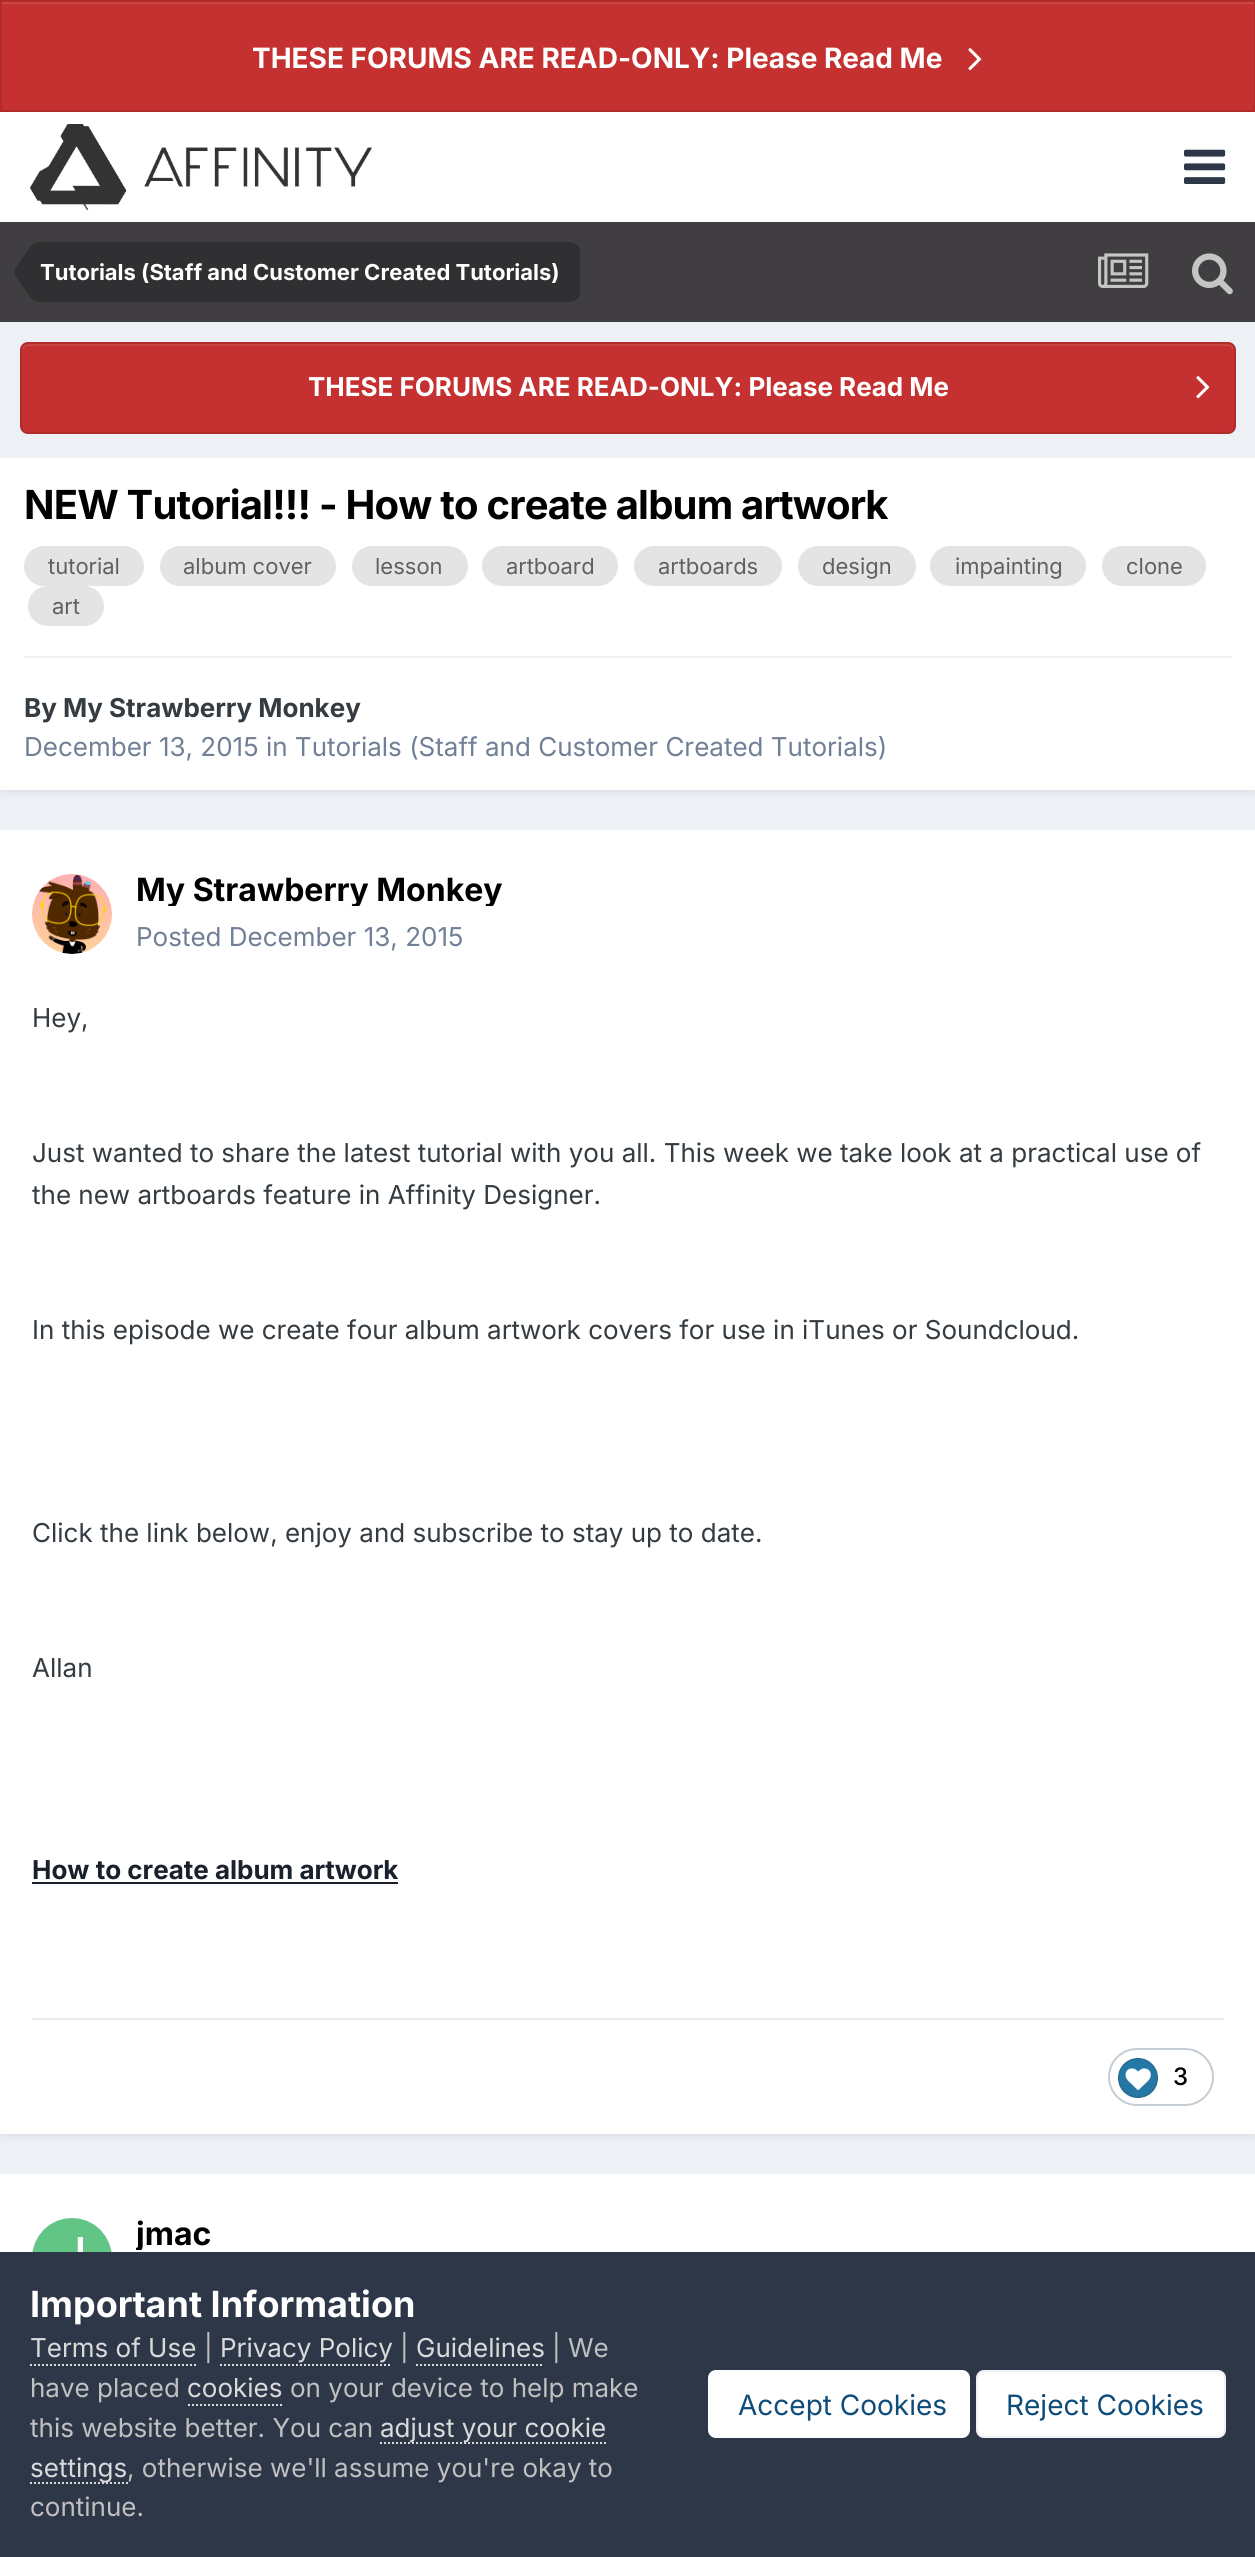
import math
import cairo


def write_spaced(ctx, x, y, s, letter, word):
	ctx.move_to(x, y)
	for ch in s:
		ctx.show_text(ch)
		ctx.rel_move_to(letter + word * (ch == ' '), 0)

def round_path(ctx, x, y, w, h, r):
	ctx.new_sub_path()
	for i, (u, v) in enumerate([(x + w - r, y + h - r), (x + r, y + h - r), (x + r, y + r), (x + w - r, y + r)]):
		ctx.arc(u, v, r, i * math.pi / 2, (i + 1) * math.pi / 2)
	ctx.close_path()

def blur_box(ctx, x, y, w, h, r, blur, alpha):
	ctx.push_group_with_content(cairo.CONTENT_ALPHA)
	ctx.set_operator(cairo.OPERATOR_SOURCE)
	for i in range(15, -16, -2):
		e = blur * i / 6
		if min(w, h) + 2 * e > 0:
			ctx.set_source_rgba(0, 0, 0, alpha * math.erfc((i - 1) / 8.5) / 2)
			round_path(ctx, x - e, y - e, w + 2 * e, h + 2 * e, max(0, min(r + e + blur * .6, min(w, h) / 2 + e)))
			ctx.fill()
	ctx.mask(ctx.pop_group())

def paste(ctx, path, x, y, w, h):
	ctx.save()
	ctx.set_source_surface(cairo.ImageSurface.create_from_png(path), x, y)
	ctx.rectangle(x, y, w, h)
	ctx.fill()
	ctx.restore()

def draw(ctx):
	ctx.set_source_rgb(0.929, 0.941, 0.957)
	ctx.paint()
	ctx.set_source_rgb(0.773, 0.188, 0.188)
	ctx.rectangle(2, 4, 1252, 106)
	ctx.fill()
	ctx.set_source_rgb(0.796, 0.271, 0.271)
	ctx.rectangle(2, 2, 1252, 2)
	ctx.fill()
	ctx.rectangle(1, 1, 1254, 110)
	ctx.set_source_rgb(0.694, 0.169, 0.169)
	ctx.stroke()
	ctx.select_font_face('Inter', cairo.FONT_SLANT_NORMAL, cairo.FONT_WEIGHT_BOLD)
	ctx.set_font_size(28)
	ctx.set_source_rgb(1, 1, 1)
	ctx.move_to(252, 68)
	ctx.show_text('THESE FORUMS ARE READ-ONLY: Please Read Me')
	paste(ctx, 'media/1.png', 968, 48, 14, 23)
	ctx.rectangle(0, 112, 1255, 110)
	ctx.fill()
	paste(ctx, 'media/2.png', 30, 124, 342, 86)
	paste(ctx, 'media/3.png', 1184, 149, 42, 35)
	ctx.set_source_rgb(0.251, 0.243, 0.255)
	ctx.rectangle(0, 222, 1255, 100)
	ctx.fill()
	ctx.set_source_rgb(0.188, 0.184, 0.192)
	ctx.new_path()
	ctx.move_to(40, 242)
	ctx.line_to(570, 242)
	ctx.curve_to(575.5, 242, 580, 246.5, 580, 252)
	ctx.line_to(580, 292)
	ctx.curve_to(580, 297.5, 575.5, 302, 570, 302)
	ctx.line_to(40, 302)
	ctx.close_path()
	ctx.fill()
	ctx.new_path()
	ctx.move_to(40, 272)
	ctx.line_to(40, 302)
	ctx.curve_to(36.5, 302, 33, 300, 30, 297)
	ctx.line_to(15, 275.5)
	ctx.curve_to(14.5, 274.5, 14, 273.5, 14, 272)
	ctx.close_path()
	ctx.move_to(40, 272)
	ctx.line_to(14, 272)
	ctx.curve_to(14, 270.5, 14.5, 269.5, 15, 268.5)
	ctx.line_to(30, 247)
	ctx.curve_to(33, 244, 36.5, 242, 40, 242)
	ctx.close_path()
	ctx.fill()
	ctx.set_font_size(22)
	ctx.set_source_rgb(1, 1, 1)
	ctx.move_to(40, 280)
	ctx.show_text('Tutorials (Staff and Customer Created Tutorials)')
	paste(ctx, 'media/4.png', 1098, 253, 51, 35)
	paste(ctx, 'media/5.png', 1192, 253, 41, 42)
	ctx.set_source_rgb(0.773, 0.188, 0.188)
	round_path(ctx, 20, 342, 1216, 92, 8)
	ctx.fill()
	ctx.set_source_rgb(0.796, 0.271, 0.271)
	ctx.new_path()
	ctx.move_to(28, 346)
	ctx.line_to(1228, 346)
	ctx.curve_to(1231, 346, 1234, 349, 1234, 352)
	ctx.line_to(1234, 350)
	ctx.curve_to(1234, 347, 1231, 344, 1228, 344)
	ctx.line_to(28, 344)
	ctx.curve_to(25, 344, 22, 347, 22, 350)
	ctx.line_to(22, 352)
	ctx.curve_to(22, 349, 25, 346, 28, 346)
	ctx.close_path()
	ctx.fill()
	round_path(ctx, 21, 343, 1214, 90, 7)
	ctx.set_source_rgba(0, 0, 0, 0.1)
	ctx.stroke()
	ctx.set_font_size(26)
	ctx.set_source_rgb(1, 1, 1)
	ctx.move_to(308, 396)
	ctx.show_text('THESE FORUMS ARE READ-ONLY: Please Read Me')
	paste(ctx, 'media/1.png', 1196, 376, 14, 23)
	ctx.set_source_rgb(0.176, 0.216, 0.282)
	blur_box(ctx, 2, 464, 1252, 328, 0, 4, 0.1)
	ctx.set_source_rgb(1, 1, 1)
	ctx.rectangle(0, 458, 1255, 332)
	ctx.fill()
	ctx.set_font_size(40)
	ctx.set_source_rgb(0, 0, 0)
	write_spaced(ctx, 24, 519, 'NEW Tutorial!!! - How to create album artwork', -0.8, 0)
	ctx.set_source_rgb(0.894, 0.894, 0.894)
	round_path(ctx, 24, 546, 120, 40, 20)
	ctx.fill()
	ctx.select_font_face('Inter')
	ctx.set_font_size(22)
	ctx.set_source_rgb(0.376, 0.376, 0.376)
	ctx.move_to(48, 574)
	ctx.show_text('tutorial')
	ctx.set_source_rgb(0.894, 0.894, 0.894)
	round_path(ctx, 160, 546, 176, 40, 20)
	ctx.fill()
	ctx.set_source_rgb(0.376, 0.376, 0.376)
	ctx.move_to(183, 574)
	ctx.show_text('album cover')
	ctx.set_source_rgb(0.894, 0.894, 0.894)
	round_path(ctx, 352, 546, 116, 40, 20)
	ctx.fill()
	ctx.set_source_rgb(0.376, 0.376, 0.376)
	ctx.move_to(375, 574)
	ctx.show_text('lesson')
	ctx.set_source_rgb(0.894, 0.894, 0.894)
	round_path(ctx, 482, 546, 136, 40, 20)
	ctx.fill()
	ctx.set_source_rgb(0.376, 0.376, 0.376)
	ctx.move_to(506, 574)
	ctx.show_text('artboard')
	ctx.set_source_rgb(0.894, 0.894, 0.894)
	round_path(ctx, 634, 546, 148, 40, 20)
	ctx.fill()
	ctx.set_source_rgb(0.376, 0.376, 0.376)
	ctx.move_to(658, 574)
	ctx.show_text('artboards')
	ctx.set_source_rgb(0.894, 0.894, 0.894)
	round_path(ctx, 798, 546, 118, 40, 20)
	ctx.fill()
	ctx.set_source_rgb(0.376, 0.376, 0.376)
	ctx.move_to(822, 574)
	ctx.show_text('design')
	ctx.set_source_rgb(0.894, 0.894, 0.894)
	round_path(ctx, 930, 546, 156, 40, 20)
	ctx.fill()
	ctx.set_source_rgb(0.376, 0.376, 0.376)
	ctx.move_to(955, 574)
	ctx.show_text('impainting')
	ctx.set_source_rgb(0.894, 0.894, 0.894)
	round_path(ctx, 1102, 546, 104, 40, 20)
	ctx.fill()
	ctx.set_source_rgb(0.376, 0.376, 0.376)
	ctx.move_to(1126, 574)
	ctx.show_text('clone')
	ctx.set_source_rgb(0.894, 0.894, 0.894)
	round_path(ctx, 28, 586, 76, 40, 20)
	ctx.fill()
	ctx.set_source_rgb(0.376, 0.376, 0.376)
	ctx.move_to(52, 614)
	ctx.show_text('art')
	ctx.set_source_rgb(0.937, 0.937, 0.941)
	ctx.rectangle(24, 656, 1208, 2)
	ctx.fill()
	ctx.select_font_face('Inter', cairo.FONT_SLANT_NORMAL, cairo.FONT_WEIGHT_BOLD)
	ctx.set_font_size(26)
	ctx.set_source_rgb(0.208, 0.235, 0.255)
	ctx.move_to(24, 717)
	ctx.show_text('By My Strawberry Monkey')
	ctx.select_font_face('Inter')
	ctx.set_source_rgb(0.443, 0.502, 0.588)
	ctx.move_to(24, 756)
	ctx.show_text('December 13, 2015 in Tutorials (Staff and Customer Created Tutorials)')
	ctx.set_source_rgb(0.176, 0.216, 0.282)
	blur_box(ctx, 2, 836, 1252, 1300, 0, 4, 0.1)
	ctx.set_source_rgb(1, 1, 1)
	ctx.rectangle(0, 830, 1255, 1304)
	ctx.fill()
	paste(ctx, 'media/6.png', 32, 874, 80, 80)
	ctx.save()
	ctx.rectangle(136, 870, 366, 36)
	ctx.clip()
	ctx.select_font_face('Inter', cairo.FONT_SLANT_NORMAL, cairo.FONT_WEIGHT_BOLD)
	ctx.set_font_size(32)
	ctx.set_source_rgb(0, 0, 0)
	ctx.move_to(136, 901)
	ctx.show_text('My Strawberry Monkey')
	ctx.restore()
	ctx.set_source_rgb(0.443, 0.502, 0.588)
	ctx.move_to(136, 946)
	ctx.show_text('Posted December 13, 2015')
	ctx.set_source_rgb(0.208, 0.235, 0.255)
	for x, y, s in [
		(32, 1027, 'Hey,'),
		(32, 1162, 'Just wanted to share the latest tutorial with you all. This week we take look at a practical use of'),
		(32, 1204, 'the new artboards feature in Affinity Designer.'),
		(32, 1339, 'In this episode we create four album artwork covers for use in iTunes or Soundcloud.'),
		(32, 1542, 'Click the link below, enjoy and subscribe to stay up to date.'),
		(32, 1677, 'Allan'),
	]:
		ctx.move_to(x, y)
		ctx.show_text(s)
	ctx.select_font_face('Inter', cairo.FONT_SLANT_NORMAL, cairo.FONT_WEIGHT_BOLD)
	ctx.set_source_rgb(0.102, 0.125, 0.173)
	ctx.move_to(32, 1879)
	ctx.show_text('How to create album artwork')
	ctx.rectangle(32, 1882, 366, 2)
	ctx.fill()
	ctx.set_source_rgb(0.922, 0.925, 0.925)
	ctx.rectangle(32, 2018, 1192, 2)
	ctx.fill()
	round_path(ctx, 1109, 2049, 104, 56, 28)
	ctx.set_source_rgb(0.776, 0.8, 0.835)
	ctx.stroke()
	paste(ctx, 'media/7.png', 1118, 2058, 40, 40)
	ctx.select_font_face('Inter Medium')
	ctx.set_font_size(24)
	ctx.set_source_rgb(0, 0, 0)
	ctx.move_to(1173, 2085)
	ctx.show_text('3')
	ctx.set_source_rgb(1, 1, 1)
	ctx.rectangle(0, 2174, 1255, 78)
	ctx.fill()
	paste(ctx, 'media/8.png', 32, 2218, 80, 34)
	ctx.save()
	ctx.rectangle(136, 2214, 76, 36)
	ctx.clip()
	ctx.select_font_face('Inter', cairo.FONT_SLANT_NORMAL, cairo.FONT_WEIGHT_BOLD)
	ctx.set_font_size(32)
	ctx.set_source_rgb(0, 0, 0)
	ctx.move_to(136, 2245)
	ctx.show_text('jmac')
	ctx.restore()
	ctx.set_source_rgb(0.176, 0.216, 0.282)
	ctx.rectangle(0, 2252, 1255, 305)
	ctx.fill()
	ctx.select_font_face('Inter', cairo.FONT_SLANT_NORMAL, cairo.FONT_WEIGHT_BOLD)
	ctx.set_font_size(36)
	ctx.set_source_rgb(1, 1, 1)
	ctx.move_to(30, 2317)
	ctx.show_text('Important Information')
	ctx.select_font_face('Inter')
	ctx.set_font_size(26)
	ctx.set_source_rgb(0.855, 0.855, 0.855)
	ctx.move_to(30, 2357)
	ctx.show_text('Terms of Use')
	ctx.new_path()
	ctx.move_to(30, 2365)
	ctx.line_to(196, 2365)
	ctx.set_dash([2, 2])
	ctx.stroke()
	ctx.set_source_rgb(0.753, 0.753, 0.753)
	ctx.move_to(204, 2357)
	ctx.show_text('|')
	ctx.set_source_rgb(0.855, 0.855, 0.855)
	ctx.move_to(220, 2357)
	ctx.show_text('Privacy Policy')
	ctx.new_path()
	ctx.move_to(220, 2365)
	ctx.line_to(392, 2365)
	ctx.stroke()
	ctx.set_source_rgb(0.753, 0.753, 0.753)
	ctx.move_to(400, 2357)
	ctx.show_text('|')
	ctx.set_source_rgb(0.855, 0.855, 0.855)
	ctx.move_to(416, 2357)
	ctx.show_text('Guidelines')
	ctx.new_path()
	ctx.move_to(416, 2365)
	ctx.line_to(544, 2365)
	ctx.stroke()
	ctx.set_source_rgb(0.753, 0.753, 0.753)
	ctx.move_to(552, 2357)
	ctx.show_text('| We')
	ctx.move_to(30, 2397)
	ctx.show_text('have placed')
	ctx.set_source_rgb(0.855, 0.855, 0.855)
	ctx.move_to(187, 2397)
	ctx.show_text('cookies')
	ctx.new_path()
	ctx.move_to(188, 2405)
	ctx.line_to(282, 2405)
	ctx.stroke()
	ctx.set_source_rgb(0.753, 0.753, 0.753)
	ctx.move_to(290, 2397)
	ctx.show_text('on your device to help make')
	ctx.move_to(30, 2437)
	ctx.show_text('this website better. You can')
	ctx.new_path()
	ctx.move_to(380, 2443)
	ctx.line_to(606, 2443)
	ctx.set_source_rgb(0.855, 0.855, 0.855)
	ctx.stroke()
	ctx.move_to(380, 2437)
	ctx.show_text('adjust your cookie')
	ctx.new_path()
	ctx.move_to(30, 2483)
	ctx.line_to(128, 2483)
	ctx.stroke()
	ctx.move_to(30, 2477)
	ctx.show_text('settings')
	ctx.set_source_rgb(0.753, 0.753, 0.753)
	ctx.move_to(127, 2477)
	ctx.show_text(', otherwise we\'ll assume you\'re okay to')
	ctx.move_to(30, 2516)
	ctx.show_text('continue.')
	ctx.set_source_rgb(1, 1, 1)
	round_path(ctx, 708, 2370, 262, 68, 8)
	ctx.fill()
	ctx.set_font_size(28)
	ctx.set_source_rgb(0.055, 0.298, 0.475)
	ctx.move_to(738, 2415)
	ctx.show_text('Accept Cookies')
	ctx.set_source_rgb(1, 1, 1)
	round_path(ctx, 976, 2370, 250, 68, 8)
	ctx.fill()
	round_path(ctx, 977, 2371, 248, 66, 7)
	ctx.set_source_rgba(0.055, 0.298, 0.475, 0.07)
	ctx.set_dash([])
	ctx.stroke()
	ctx.set_source_rgb(0.055, 0.298, 0.475)
	ctx.move_to(1006, 2415)
	ctx.show_text('Reject Cookies')


surface = cairo.ImageSurface(cairo.FORMAT_RGB24, 1255, 2557)
ctx = cairo.Context(surface)
options = cairo.FontOptions()
options.set_hint_metrics(cairo.HINT_METRICS_OFF)
options.set_hint_style(cairo.HINT_STYLE_NONE)
ctx.set_font_options(options)
ctx.set_miter_limit(4)
draw(ctx)
surface.write_to_png('image.png')
